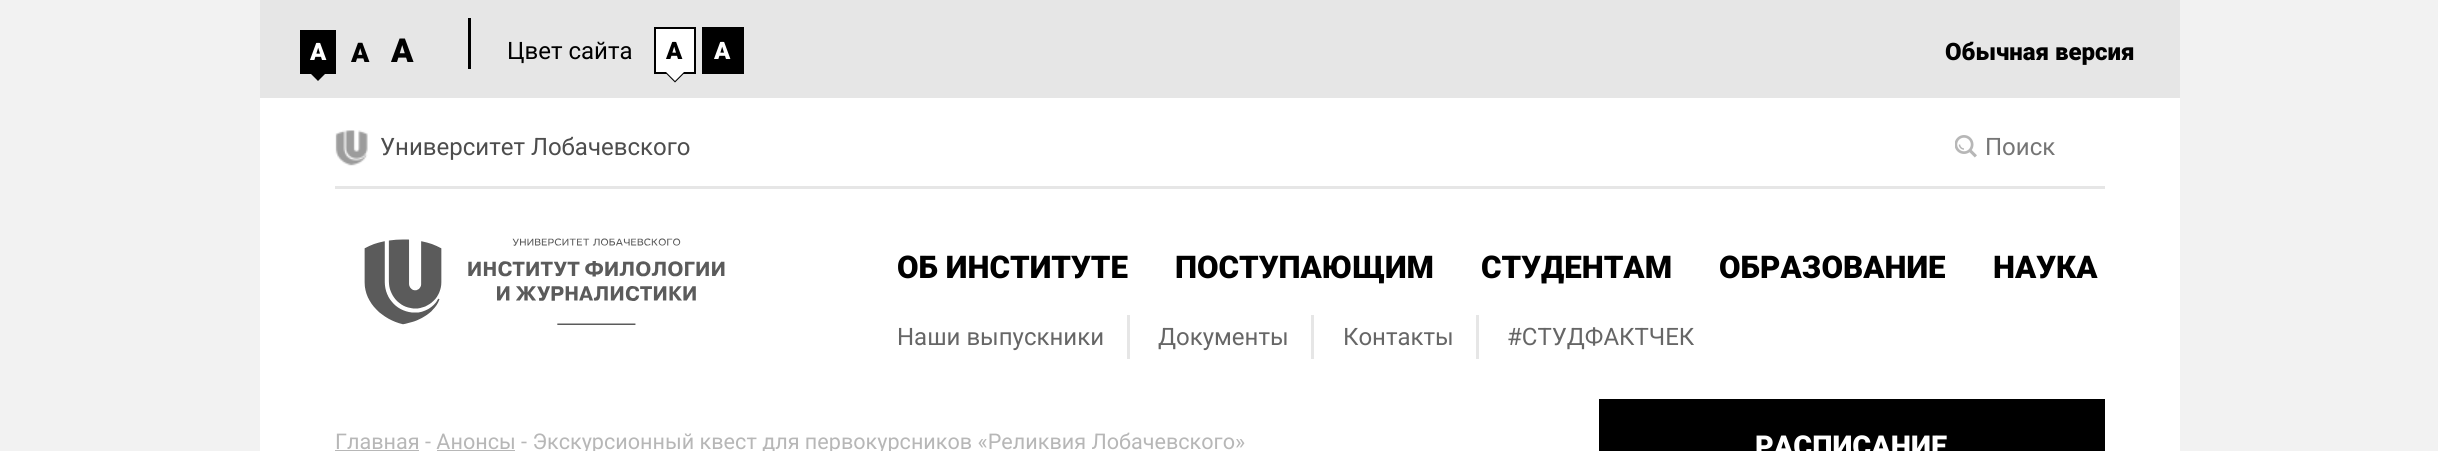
import math
import cairo


def paste(ctx, path, x, y, w, h):
	ctx.save()
	ctx.set_source_surface(cairo.ImageSurface.create_from_png(path), x, y)
	ctx.rectangle(x, y, w, h)
	ctx.fill()
	ctx.restore()

def draw(ctx):
	ctx.set_source_rgb(0.949, 0.949, 0.949)
	ctx.paint()
	ctx.set_source_rgb(0.902, 0.902, 0.902)
	ctx.rectangle(260, 0, 1920, 98)
	ctx.fill()
	ctx.set_source_rgb(0, 0, 0)
	ctx.rectangle(300, 30, 36, 44)
	ctx.fill()
	ctx.select_font_face('Roboto Black')
	ctx.set_font_size(24)
	ctx.set_source_rgb(1, 1, 1)
	ctx.move_to(310, 60)
	ctx.show_text('A')
	ctx.set_source_rgb(0, 0, 0)
	ctx.new_path()
	ctx.move_to(310.5, 73.5)
	ctx.line_to(325.5, 73.5)
	ctx.line_to(318, 81)
	ctx.close_path()
	ctx.fill()
	ctx.set_font_size(27)
	ctx.move_to(351, 62)
	ctx.show_text('A')
	ctx.set_font_size(33)
	ctx.move_to(391, 62)
	ctx.show_text('A')
	ctx.rectangle(468, 18, 3, 51)
	ctx.fill()
	ctx.select_font_face('Roboto')
	ctx.set_font_size(24)
	ctx.move_to(507, 59)
	ctx.show_text('Цвет сайта')
	ctx.set_source_rgb(1, 1, 1)
	ctx.rectangle(655, 28, 40, 45)
	ctx.fill_preserve()
	ctx.set_source_rgb(0, 0, 0)
	ctx.stroke()
	ctx.select_font_face('Roboto Black')
	ctx.move_to(666, 59)
	ctx.show_text('A')
	ctx.new_path()
	ctx.move_to(666, 73.5)
	ctx.line_to(684, 73.5)
	ctx.line_to(675, 82.5)
	ctx.close_path()
	ctx.fill()
	ctx.set_source_rgb(1, 1, 1)
	ctx.new_path()
	ctx.move_to(666, 72)
	ctx.line_to(684, 72)
	ctx.line_to(675, 81)
	ctx.close_path()
	ctx.fill()
	ctx.set_source_rgb(0, 0, 0)
	ctx.rectangle(702, 27, 42, 47)
	ctx.fill()
	ctx.set_source_rgb(1, 1, 1)
	ctx.move_to(714, 59)
	ctx.show_text('A')
	ctx.set_source_rgb(0, 0, 0)
	ctx.move_to(1945, 60)
	ctx.show_text('Обычная версия')
	ctx.set_source_rgb(1, 1, 1)
	ctx.rectangle(260, 98, 1920, 301)
	ctx.fill()
	ctx.set_source_rgb(0.902, 0.902, 0.902)
	ctx.rectangle(335, 186, 1770, 3)
	ctx.fill()
	paste(ctx, 'media/1.png', 335, 130, 33, 36)
	ctx.select_font_face('Roboto')
	ctx.set_source_rgb(0.302, 0.302, 0.302)
	ctx.move_to(380, 155)
	ctx.show_text('Университет Лобачевского')
	paste(ctx, 'media/2.png', 1955, 135, 22, 23)
	ctx.set_source_rgb(0.459, 0.459, 0.459)
	ctx.move_to(1985, 155)
	ctx.show_text('Поиск')
	paste(ctx, 'media/3.png', 364, 238, 361, 87)
	ctx.select_font_face('Roboto Black')
	ctx.set_font_size(31.25)
	ctx.set_source_rgb(0, 0, 0)
	for x, y, s in [
		(897, 278, 'ОБ ИНСТИТУТЕ'),
		(1175, 278, 'ПОСТУПАЮЩИМ'),
		(1481, 278, 'СТУДЕНТАМ'),
		(1719, 278, 'ОБРАЗОВАНИЕ'),
		(1993, 278, 'НАУКА'),
	]:
		ctx.move_to(x, y)
		ctx.show_text(s)
	ctx.set_source_rgb(0.902, 0.902, 0.902)
	ctx.rectangle(1127, 315, 3, 44)
	ctx.fill()
	ctx.select_font_face('Roboto')
	ctx.set_font_size(24)
	ctx.set_source_rgb(0.4, 0.4, 0.4)
	ctx.move_to(897, 345)
	ctx.show_text('Наши выпускники')
	ctx.set_source_rgb(0.902, 0.902, 0.902)
	ctx.rectangle(1311, 315, 3, 44)
	ctx.fill()
	ctx.set_source_rgb(0.4, 0.4, 0.4)
	ctx.move_to(1158, 345)
	ctx.show_text('Документы')
	ctx.set_source_rgb(0.902, 0.902, 0.902)
	ctx.rectangle(1476, 315, 3, 44)
	ctx.fill()
	ctx.set_source_rgb(0.4, 0.4, 0.4)
	ctx.move_to(1343, 345)
	ctx.show_text('Контакты')
	ctx.move_to(1507, 345)
	ctx.show_text('#СТУДФАКТЧЕК')
	ctx.set_source_rgb(1, 1, 1)
	ctx.rectangle(260, 399, 1920, 52)
	ctx.fill()
	ctx.set_source_rgb(0.718, 0.718, 0.718)
	ctx.rectangle(335, 450, 84, 1)
	ctx.fill()
	ctx.set_font_size(21.6)
	ctx.move_to(335, 449)
	ctx.show_text('Главная - Анонсы - Экскурсионный квест для первокурсников «Реликвия Лобачевского»')
	ctx.rectangle(437, 450, 78, 1)
	ctx.fill()
	ctx.set_source_rgb(0, 0, 0)
	ctx.rectangle(1599, 399, 506, 52)
	ctx.fill()
	ctx.select_font_face('Roboto Black')
	ctx.set_font_size(28.75)
	ctx.set_source_rgb(1, 1, 1)
	ctx.move_to(1755, 456)
	ctx.show_text('РАСПИСАНИЕ')


surface = cairo.ImageSurface(cairo.FORMAT_RGB24, 2438, 451)
ctx = cairo.Context(surface)
options = cairo.FontOptions()
options.set_hint_metrics(cairo.HINT_METRICS_OFF)
options.set_hint_style(cairo.HINT_STYLE_NONE)
ctx.set_font_options(options)
ctx.set_miter_limit(4)
draw(ctx)
surface.write_to_png('image.png')
